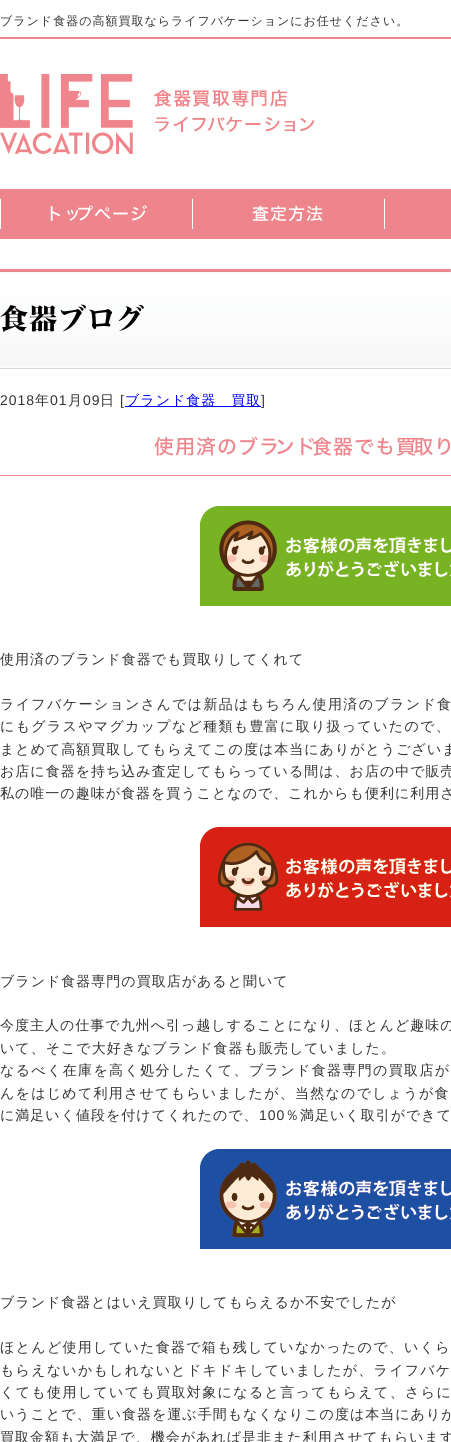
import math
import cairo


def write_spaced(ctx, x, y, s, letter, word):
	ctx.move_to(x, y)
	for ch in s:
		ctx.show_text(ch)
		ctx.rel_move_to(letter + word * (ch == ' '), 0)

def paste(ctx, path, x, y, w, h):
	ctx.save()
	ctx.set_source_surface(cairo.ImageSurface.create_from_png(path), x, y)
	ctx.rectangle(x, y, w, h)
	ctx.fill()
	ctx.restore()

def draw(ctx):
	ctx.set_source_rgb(1, 1, 1)
	ctx.paint()
	ctx.select_font_face('WenQuanYi Zen Hei Medium')
	ctx.set_font_size(12)
	ctx.set_source_rgb(0.2, 0.2, 0.2)
	write_spaced(ctx, 0, 25, 'ブランド食器の高額買取ならライフバケーションにお任せください。', 1, 0)
	ctx.set_source_rgb(0.933, 0.522, 0.549)
	ctx.rectangle(0, 37, 451, 2)
	ctx.fill()
	paste(ctx, 'media/1.png', 0, 73, 315, 84)
	ctx.rectangle(0, 189, 451, 50)
	ctx.fill()
	paste(ctx, 'media/2.png', 0, 198, 1, 31)
	ctx.select_font_face('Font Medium')
	ctx.set_font_size(17)
	ctx.set_source_rgb(1, 1, 1)
	write_spaced(ctx, 46, 220, 'トッ', 1, 0)
	write_spaced(ctx, 76, 220, 'プページ', 1, 0)
	paste(ctx, 'media/2.png', 192, 198, 1, 31)
	write_spaced(ctx, 252, 220, '査定方法', 1, 0)
	paste(ctx, 'media/2.png', 384, 198, 1, 31)
	paste(ctx, 'media/3.png', 0, 269, 451, 100)
	ctx.select_font_face('Font ExtraBold')
	ctx.set_font_size(28)
	ctx.set_source_rgb(0, 0, 0)
	write_spaced(ctx, 0, 329, '食器ブログ', 1, 0)
	ctx.select_font_face('Liberation Sans')
	ctx.set_font_size(14)
	ctx.set_source_rgb(0.2, 0.2, 0.2)
	write_spaced(ctx, 0, 405, '2018', 1, 0)
	ctx.select_font_face('WenQuanYi Zen Hei Medium')
	write_spaced(ctx, 35, 405, '年', 1, 0)
	ctx.select_font_face('Liberation Sans')
	write_spaced(ctx, 50, 405, '01', 1, 0)
	ctx.select_font_face('WenQuanYi Zen Hei Medium')
	write_spaced(ctx, 68, 405, '月', 1, 0)
	ctx.select_font_face('Liberation Sans')
	write_spaced(ctx, 83, 405, '09', 1, 0)
	ctx.select_font_face('WenQuanYi Zen Hei Medium')
	write_spaced(ctx, 100, 405, '日', 1, 0)
	ctx.select_font_face('Liberation Sans')
	write_spaced(ctx, 120, 405, '[', 1, 0)
	ctx.set_source_rgb(0, 0, 1)
	ctx.rectangle(125, 406, 136, 1)
	ctx.fill()
	ctx.select_font_face('WenQuanYi Zen Hei Medium')
	write_spaced(ctx, 125, 405, 'ブランド食器　買取', 1, 0)
	ctx.select_font_face('Liberation Sans')
	ctx.set_source_rgb(0.2, 0.2, 0.2)
	write_spaced(ctx, 261, 405, ']', 1, 0)
	ctx.set_source_rgb(0.937, 0.522, 0.549)
	ctx.rectangle(0, 475, 451, 1)
	ctx.fill()
	ctx.select_font_face('Font Medium')
	ctx.set_font_size(20)
	write_spaced(ctx, 154, 454, '使用済のブラ', 1, 0)
	write_spaced(ctx, 275, 454, 'ンド', 1, 0)
	write_spaced(ctx, 312, 454, '食器でも買', 1, 0)
	write_spaced(ctx, 413, 454, '取り', 1, 0)
	paste(ctx, 'media/4.png', 200, 506, 251, 100)
	ctx.select_font_face('WenQuanYi Zen Hei Medium')
	ctx.set_font_size(14)
	ctx.set_source_rgb(0.2, 0.2, 0.2)
	write_spaced(ctx, 0, 664, '使用済のブランド食器でも買取りしてくれて', 1, 0)
	write_spaced(ctx, 0, 709, 'ライフバケーションさんでは新品はもちろん使用済のブランド食', 1.35, 0)
	write_spaced(ctx, 0, 731, 'にもグラスやマグカップなど種類も豊富に取り扱っていたので、', 1.3, 0)
	for x, y, s in [
		(0, 754, 'まとめて高額買取してもらえてこの度は本当にありがとうございま'),
		(0, 776, 'お店に食器を持ち込み査定してもらっている間は、お店の中で販売'),
		(0, 798, '私の唯一の趣味が食器を買うことなので、これからも便利に利用さ'),
	]:
		write_spaced(ctx, x, y, s, 1, 0)
	paste(ctx, 'media/5.png', 200, 827, 251, 100)
	for x, y, s in [
		(0, 986, 'ブランド食器専門の買取店があると聞いて'),
		(0, 1030, '今度主人の仕事で九州へ引っ越しすることになり、ほとんど趣味の'),
		(0, 1053, 'いて、そこで大好きなブランド食器も販売していました。'),
	]:
		write_spaced(ctx, x, y, s, 1, 0)
	write_spaced(ctx, 0, 1075, 'なるべく在庫を高く処分したくて、ブランド食器専門の買取店が', 1.35, 0)
	write_spaced(ctx, 0, 1098, 'んをはじめて利用させてもらいましたが、当然なのでしょうが食', 1.25, 0)
	write_spaced(ctx, 0, 1120, 'に満足いく値段を付けてくれたので、', 1, 0)
	ctx.select_font_face('Liberation Sans')
	write_spaced(ctx, 259, 1120, '100', 1, 0)
	ctx.select_font_face('WenQuanYi Zen Hei Medium')
	write_spaced(ctx, 285, 1120, '％満足いく取引ができて', 1, 0)
	paste(ctx, 'media/6.png', 200, 1149, 251, 100)
	write_spaced(ctx, 0, 1307, 'ブランド食器とはいえ買取りしてもらえるか不安でしたが', 1, 0)
	write_spaced(ctx, 0, 1352, 'ほとんど使用していた食器で箱も残していなかったので、いくら', 1.3, 0)
	write_spaced(ctx, 0, 1375, 'もらえないかもしれないとドキドキしていましたが、ライフバケ', 1.25, 0)
	write_spaced(ctx, 0, 1397, 'くても使用していても買取対象になると言ってもらえて、さらに', 1.35, 0)
	write_spaced(ctx, 0, 1419, 'いうことで、重い食器を運ぶ手間もなくなりこの度は本当にありが', 1, 0)
	write_spaced(ctx, 0, 1442, '買取金額も大満足で、機会があれば是非また利用させてもらいます', 1, 0)


surface = cairo.ImageSurface(cairo.FORMAT_RGB24, 451, 1442)
ctx = cairo.Context(surface)
options = cairo.FontOptions()
options.set_hint_metrics(cairo.HINT_METRICS_OFF)
options.set_hint_style(cairo.HINT_STYLE_NONE)
ctx.set_font_options(options)
ctx.set_miter_limit(4)
draw(ctx)
surface.write_to_png('image.png')
